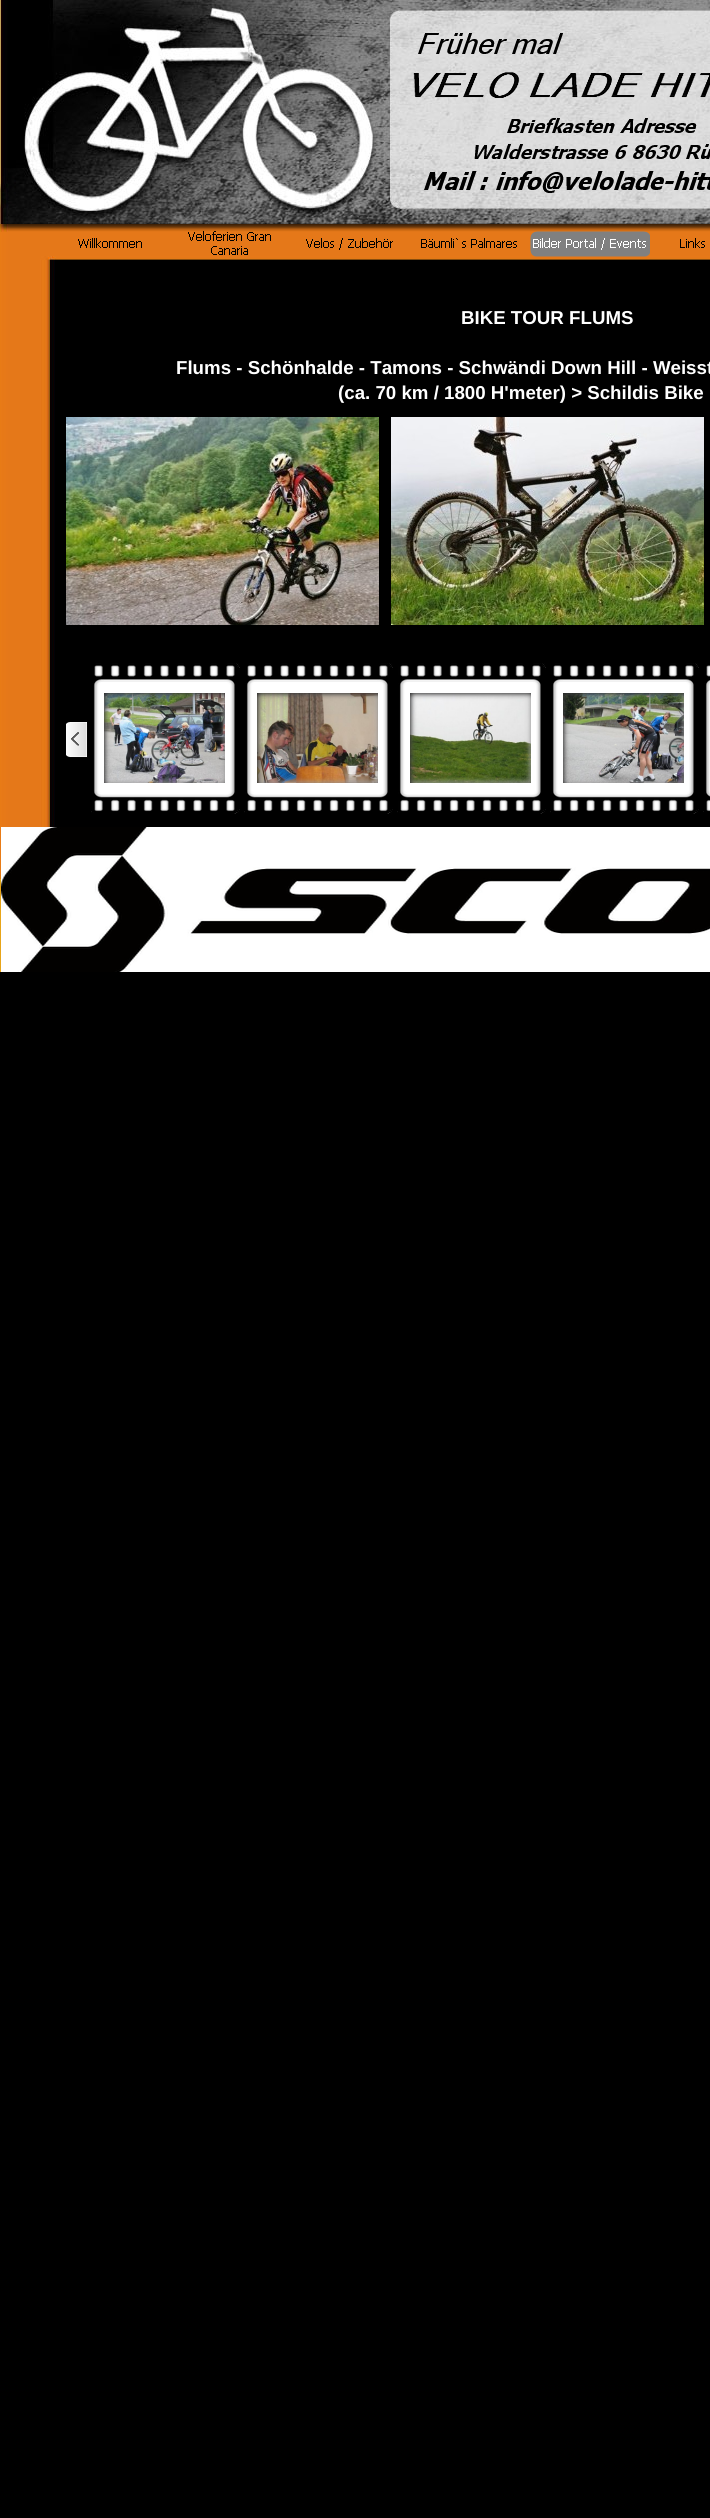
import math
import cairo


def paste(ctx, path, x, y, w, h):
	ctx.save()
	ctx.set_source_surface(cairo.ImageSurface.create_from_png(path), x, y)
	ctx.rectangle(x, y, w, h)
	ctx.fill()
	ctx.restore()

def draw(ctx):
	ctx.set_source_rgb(0, 0, 0)
	ctx.paint()
	paste(ctx, 'media/1.png', 0, 0, 710, 224)
	paste(ctx, 'media/2.png', 0, 224, 710, 36)
	paste(ctx, 'media/3.png', 78, 238, 64, 10)
	paste(ctx, 'media/4.png', 188, 231, 83, 24)
	paste(ctx, 'media/5.png', 306, 238, 87, 12)
	paste(ctx, 'media/6.png', 421, 238, 96, 10)
	paste(ctx, 'media/7.png', 530, 231, 120, 26)
	paste(ctx, 'media/8.png', 680, 238, 25, 10)
	paste(ctx, 'media/9.png', 0, 260, 55, 567)
	ctx.select_font_face('Liberation Sans', cairo.FONT_SLANT_NORMAL, cairo.FONT_WEIGHT_BOLD)
	ctx.set_font_size(18.7)
	ctx.set_source_rgb(1, 1, 1)
	for x, y, s in [
		(461, 324, 'BIKE TOUR FLUMS'),
		(176, 374, 'Flums - Schönhalde - Tamons - Schwändi Down Hill - Weisst'),
		(338, 399, '(ca. 70 km / 1800 H\'meter) > Schildis Bike'),
	]:
		ctx.move_to(x, y)
		ctx.show_text(s)
	paste(ctx, 'media/10.png', 66, 417, 313, 208)
	paste(ctx, 'media/11.png', 391, 417, 313, 208)
	paste(ctx, 'media/12.png', 66, 722, 22, 36)
	paste(ctx, 'media/13.png', 91, 663, 149, 151)
	paste(ctx, 'media/14.png', 244, 663, 149, 151)
	paste(ctx, 'media/15.png', 397, 663, 149, 151)
	paste(ctx, 'media/16.png', 550, 663, 149, 151)
	paste(ctx, 'media/17.png', 703, 665, 7, 147)
	paste(ctx, 'media/18.png', 0, 827, 710, 145)


surface = cairo.ImageSurface(cairo.FORMAT_RGB24, 710, 2518)
ctx = cairo.Context(surface)
options = cairo.FontOptions()
options.set_hint_metrics(cairo.HINT_METRICS_OFF)
options.set_hint_style(cairo.HINT_STYLE_NONE)
ctx.set_font_options(options)
ctx.set_miter_limit(4)
draw(ctx)
surface.write_to_png('image.png')
